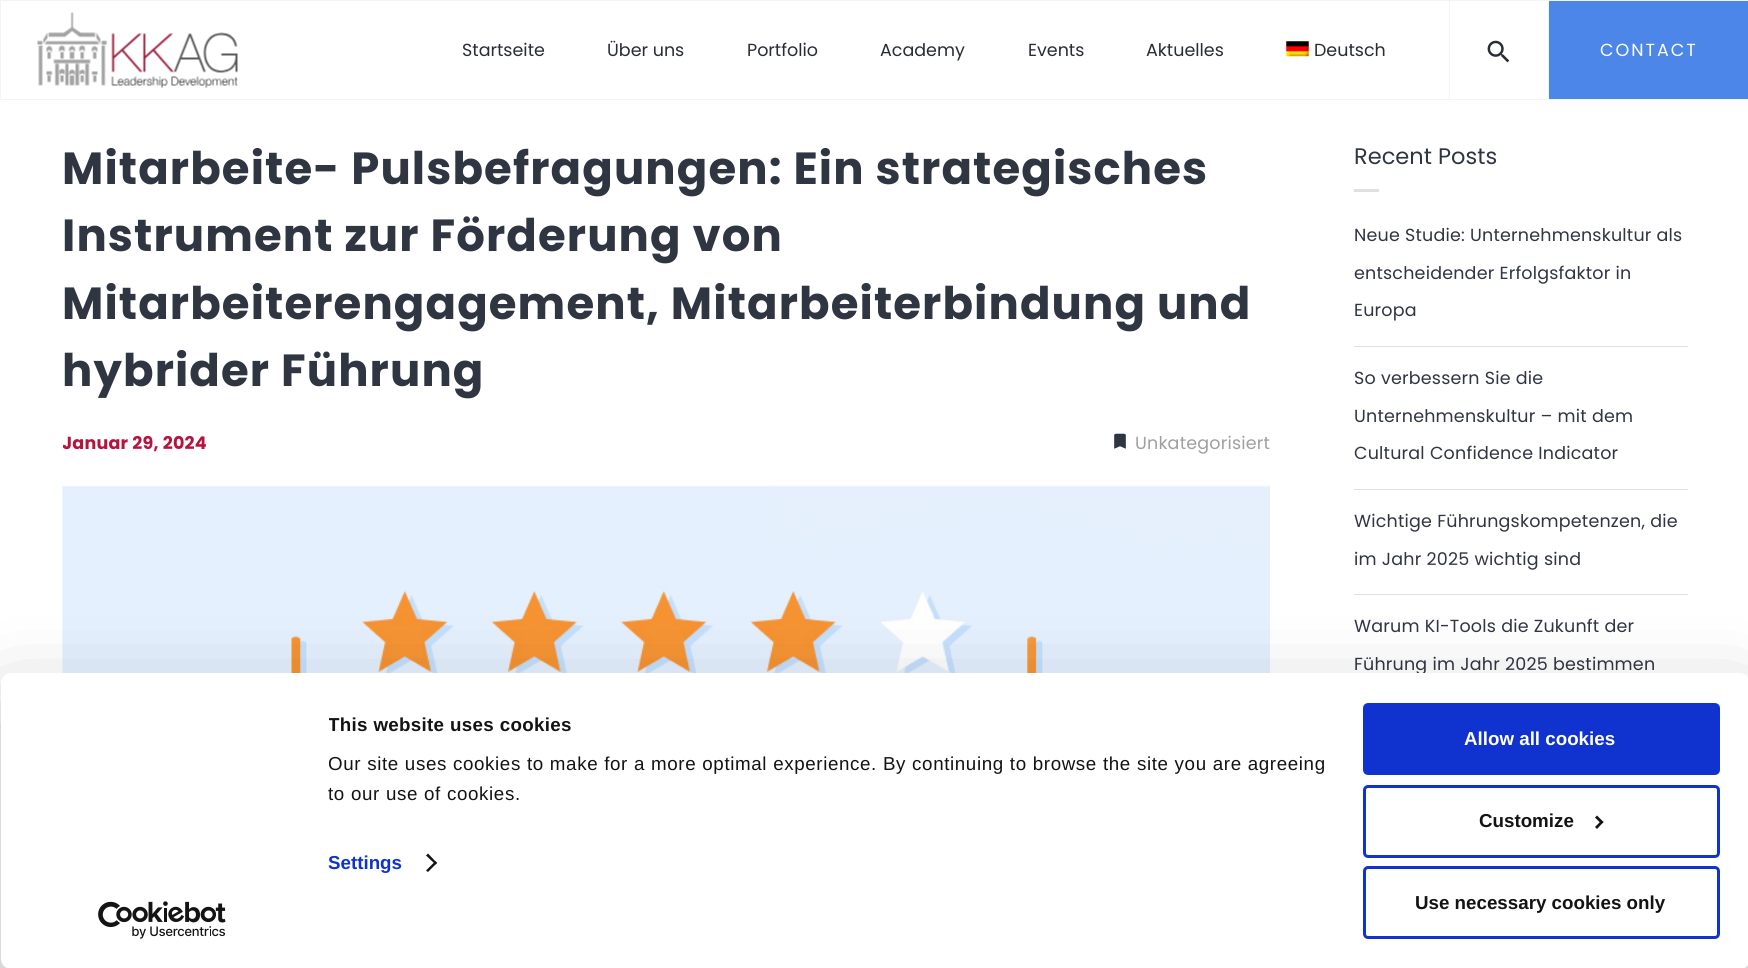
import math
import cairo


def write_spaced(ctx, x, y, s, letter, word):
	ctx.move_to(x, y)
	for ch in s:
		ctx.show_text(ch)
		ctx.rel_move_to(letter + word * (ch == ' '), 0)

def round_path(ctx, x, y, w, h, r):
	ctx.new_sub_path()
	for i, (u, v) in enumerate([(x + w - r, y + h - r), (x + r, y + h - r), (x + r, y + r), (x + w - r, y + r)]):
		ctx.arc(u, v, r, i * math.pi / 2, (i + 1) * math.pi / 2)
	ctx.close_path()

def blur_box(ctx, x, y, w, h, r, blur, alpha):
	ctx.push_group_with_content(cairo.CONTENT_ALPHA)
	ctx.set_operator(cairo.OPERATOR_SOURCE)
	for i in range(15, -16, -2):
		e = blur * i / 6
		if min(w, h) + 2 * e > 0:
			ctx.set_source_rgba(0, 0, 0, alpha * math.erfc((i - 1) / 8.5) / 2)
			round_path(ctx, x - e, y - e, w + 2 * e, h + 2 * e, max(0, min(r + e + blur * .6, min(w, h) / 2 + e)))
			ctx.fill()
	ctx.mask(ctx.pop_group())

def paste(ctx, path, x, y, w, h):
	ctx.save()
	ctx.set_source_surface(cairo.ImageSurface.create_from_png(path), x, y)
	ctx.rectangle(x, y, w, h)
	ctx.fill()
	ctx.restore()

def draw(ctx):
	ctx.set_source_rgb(1, 1, 1)
	ctx.paint()
	ctx.rectangle(0.5, 0.5, 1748, 99)
	ctx.set_source_rgb(0.953, 0.957, 0.957)
	ctx.set_line_width(1)
	ctx.stroke()
	paste(ctx, 'media/1.png', 37, 12, 201, 76)
	ctx.select_font_face('Poppins')
	ctx.set_font_size(17.5)
	ctx.set_source_rgb(0.157, 0.173, 0.208)
	for x, y, s in [
		(462, 56, 'Startseite'),
		(607, 56, 'Über uns'),
		(747, 56, 'Portfolio'),
		(880, 56, 'Academy'),
		(1028, 56, 'Events'),
		(1146, 56, 'Aktuelles'),
	]:
		ctx.move_to(x, y)
		ctx.show_text(s)
	paste(ctx, 'media/2.png', 1286, 41, 23, 16)
	ctx.move_to(1314, 56)
	ctx.show_text('Deutsch')
	ctx.set_source_rgb(0.953, 0.957, 0.957)
	ctx.rectangle(1548, 0, 1, 100)
	ctx.fill()
	ctx.rectangle(1449, 0, 1, 100)
	ctx.fill()
	paste(ctx, 'media/3.png', 1487, 40, 23, 23)
	ctx.set_source_rgb(0.298, 0.525, 0.914)
	ctx.rectangle(1549, 1, 199, 98)
	ctx.fill()
	ctx.set_source_rgb(1, 1, 1)
	write_spaced(ctx, 1600, 56, 'CONTACT', 2, 0)
	ctx.select_font_face('Poppins', cairo.FONT_SLANT_NORMAL, cairo.FONT_WEIGHT_BOLD)
	ctx.set_font_size(45)
	ctx.set_source_rgb(0.188, 0.208, 0.259)
	for x, y, s in [
		(62, 184, 'Mitarbeite- Pulsbefragungen: Ein strategisches'),
		(62, 251, 'Instrument zur Förderung von'),
		(62, 319, 'Mitarbeiterengagement, Mitarbeiterbindung und'),
		(62, 386, 'hybrider Führung'),
	]:
		write_spaced(ctx, x, y, s, 1.1, 0.2)
	ctx.save()
	ctx.rectangle(63, 424, 1207, 37)
	ctx.clip()
	ctx.set_font_size(17.5)
	ctx.set_source_rgb(0.714, 0.082, 0.247)
	write_spaced(ctx, 62, 449, 'Januar 29, 2024', 0.2, 0.2)
	ctx.restore()
	paste(ctx, 'media/4.png', 1114, 433, 12, 16)
	ctx.select_font_face('Poppins')
	ctx.set_font_size(17.5)
	ctx.set_source_rgb(0.624, 0.624, 0.624)
	write_spaced(ctx, 1135, 449, 'Unkategorisiert', 0.2, 0)
	paste(ctx, 'media/5.png', 62, 486, 1208, 187)
	ctx.set_font_size(22.5)
	ctx.set_source_rgb(0.188, 0.208, 0.259)
	write_spaced(ctx, 1354, 164, 'Recent Posts', 0, 0.2)
	ctx.set_source_rgb(0.878, 0.878, 0.878)
	ctx.rectangle(1354, 189, 25, 3)
	ctx.fill()
	ctx.rectangle(1354, 346, 334, 1)
	ctx.fill()
	ctx.set_font_size(17.5)
	ctx.set_source_rgb(0.188, 0.208, 0.259)
	write_spaced(ctx, 1354, 241, 'Neue Studie: Unternehmenskultur als', 0.2, 0.2)
	write_spaced(ctx, 1354, 279, 'entscheidender Erfolgsfaktor in', 0.2, 0.2)
	write_spaced(ctx, 1354, 316, 'Europa', 0.2, 0)
	ctx.set_source_rgb(0.878, 0.878, 0.878)
	ctx.rectangle(1354, 489, 334, 1)
	ctx.fill()
	ctx.set_source_rgb(0.188, 0.208, 0.259)
	for x, y, s in [
		(1354, 384, 'So verbessern Sie die'),
		(1354, 422, 'Unternehmenskultur – mit dem'),
		(1354, 459, 'Cultural Confidence Indicator'),
	]:
		write_spaced(ctx, x, y, s, 0.2, 0.2)
	ctx.set_source_rgb(0.878, 0.878, 0.878)
	ctx.rectangle(1354, 594, 334, 1)
	ctx.fill()
	ctx.set_source_rgb(0.188, 0.208, 0.259)
	for x, y, s in [
		(1354, 527, 'Wichtige Führungskompetenzen, die'),
		(1354, 565, 'im Jahr 2025 wichtig sind'),
		(1354, 632, 'Warum KI-Tools die Zukunft der'),
		(1354, 670, 'Führung im Jahr 2025 bestimmen'),
	]:
		write_spaced(ctx, x, y, s, 0.2, 0.2)
	ctx.set_source_rgb(0, 0, 0)
	blur_box(ctx, 1, 710, 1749, 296, 10, 44, 0.3)
	ctx.set_source_rgb(1, 1, 1)
	round_path(ctx, 1, 673, 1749, 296, 10)
	ctx.fill()
	ctx.save()
	ctx.rectangle(329, 710, 1026, 99)
	ctx.clip()
	ctx.select_font_face('Liberation Sans', cairo.FONT_SLANT_NORMAL, cairo.FONT_WEIGHT_BOLD)
	ctx.set_font_size(18.75)
	ctx.set_source_rgb(0.078, 0.078, 0.078)
	write_spaced(ctx, 328, 731, 'This website uses cookies', 0.3, 0.2)
	ctx.select_font_face('Liberation Sans')
	write_spaced(ctx, 328, 770, 'Our site uses cookies to make for a more optimal experience. By continuing to browse the site you are agreeing', 0.62, 0.2)
	ctx.restore()
	ctx.select_font_face('Liberation Sans')
	ctx.set_font_size(18.75)
	ctx.set_source_rgb(0.078, 0.078, 0.078)
	write_spaced(ctx, 328, 800, 'to our use of cookies.', 0.62, 0.2)
	ctx.select_font_face('Liberation Sans', cairo.FONT_SLANT_NORMAL, cairo.FONT_WEIGHT_BOLD)
	ctx.set_source_rgb(0.063, 0.196, 0.812)
	ctx.move_to(328, 869)
	ctx.show_text('Settings')
	ctx.set_source_rgb(0.078, 0.078, 0.078)
	ctx.new_path()
	ctx.move_to(428, 853.5)
	ctx.line_to(437, 863)
	ctx.line_to(435.5, 864.5)
	ctx.line_to(426, 855.5)
	ctx.close_path()
	ctx.fill()
	ctx.new_path()
	ctx.move_to(435.5, 861)
	ctx.line_to(437, 863)
	ctx.line_to(428, 872)
	ctx.line_to(426, 870.5)
	ctx.close_path()
	ctx.fill()
	ctx.set_source_rgb(0.063, 0.196, 0.812)
	round_path(ctx, 1364.5, 704.5, 354, 69, 3.5)
	ctx.fill_preserve()
	ctx.set_line_width(3)
	ctx.stroke()
	ctx.set_source_rgb(1, 1, 1)
	ctx.move_to(1464, 745)
	ctx.show_text('Allow all cookies')
	round_path(ctx, 1364.5, 786.5, 354, 70, 3.5)
	ctx.set_source_rgb(0.063, 0.196, 0.812)
	ctx.stroke()
	ctx.set_source_rgb(0.078, 0.078, 0.078)
	ctx.move_to(1479, 827)
	ctx.show_text('Customize')
	ctx.new_path()
	ctx.move_to(1597, 815.5)
	ctx.line_to(1603.5, 822)
	ctx.line_to(1601.5, 824)
	ctx.line_to(1595, 817.5)
	ctx.close_path()
	ctx.fill()
	ctx.new_path()
	ctx.move_to(1601.5, 820.5)
	ctx.line_to(1603.5, 822)
	ctx.line_to(1597, 829)
	ctx.line_to(1595, 827)
	ctx.close_path()
	ctx.fill()
	round_path(ctx, 1364.5, 867.5, 354, 70, 3.5)
	ctx.set_source_rgb(0.063, 0.196, 0.812)
	ctx.stroke()
	ctx.set_source_rgb(0.078, 0.078, 0.078)
	ctx.move_to(1415, 909)
	ctx.show_text('Use necessary cookies only')
	paste(ctx, 'media/6.png', 98, 901, 128, 38)


surface = cairo.ImageSurface(cairo.FORMAT_RGB24, 1748, 968)
ctx = cairo.Context(surface)
options = cairo.FontOptions()
options.set_hint_metrics(cairo.HINT_METRICS_OFF)
options.set_hint_style(cairo.HINT_STYLE_NONE)
ctx.set_font_options(options)
ctx.set_miter_limit(4)
draw(ctx)
surface.write_to_png('image.png')
